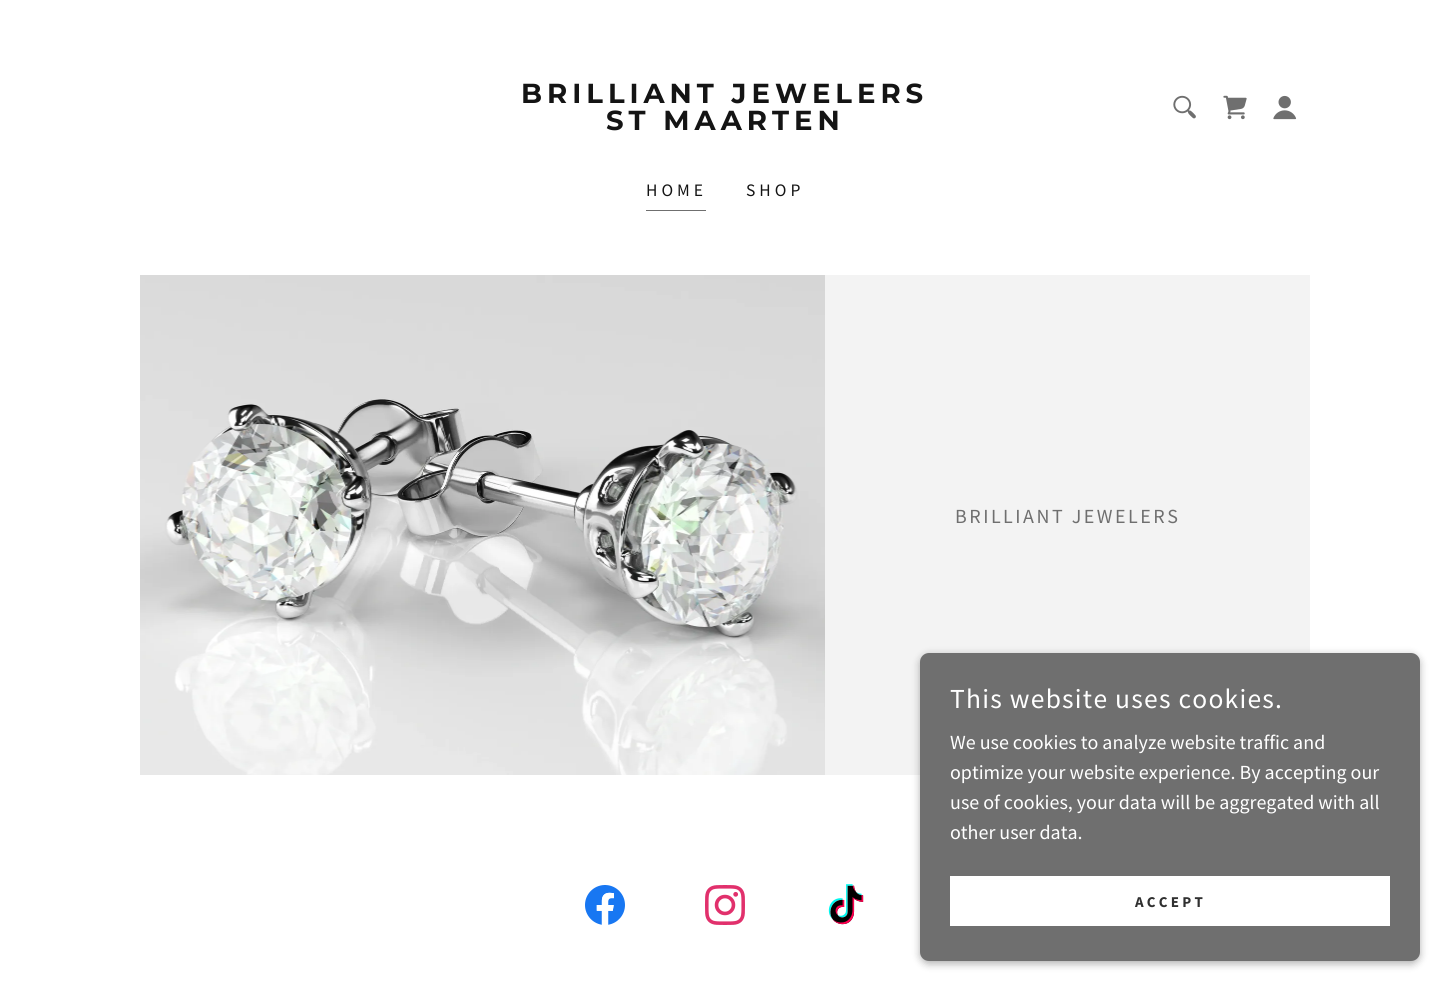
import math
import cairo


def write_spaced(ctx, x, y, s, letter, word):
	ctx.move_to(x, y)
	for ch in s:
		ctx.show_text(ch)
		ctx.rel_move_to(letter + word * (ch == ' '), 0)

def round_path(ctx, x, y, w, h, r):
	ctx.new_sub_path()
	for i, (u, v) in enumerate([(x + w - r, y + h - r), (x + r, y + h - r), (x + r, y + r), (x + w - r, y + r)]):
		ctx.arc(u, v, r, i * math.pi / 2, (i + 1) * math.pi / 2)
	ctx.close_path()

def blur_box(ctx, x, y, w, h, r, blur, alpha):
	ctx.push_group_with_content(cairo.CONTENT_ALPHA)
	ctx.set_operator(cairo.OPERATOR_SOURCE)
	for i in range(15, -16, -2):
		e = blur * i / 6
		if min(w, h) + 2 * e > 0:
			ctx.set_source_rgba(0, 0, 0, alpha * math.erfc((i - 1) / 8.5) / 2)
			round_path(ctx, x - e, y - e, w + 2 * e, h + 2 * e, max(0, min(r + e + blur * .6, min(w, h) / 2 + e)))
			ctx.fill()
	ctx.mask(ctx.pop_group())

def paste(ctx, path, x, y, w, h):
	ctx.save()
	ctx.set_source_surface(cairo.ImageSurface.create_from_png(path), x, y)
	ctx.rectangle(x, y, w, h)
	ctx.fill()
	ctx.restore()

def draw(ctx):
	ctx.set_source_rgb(1, 1, 1)
	ctx.paint()
	ctx.select_font_face('Montserrat', cairo.FONT_SLANT_NORMAL, cairo.FONT_WEIGHT_BOLD)
	ctx.set_font_size(27.5)
	ctx.set_source_rgb(0.082, 0.082, 0.082)
	write_spaced(ctx, 521, 103, 'BRILLIANT JEWELERS', 5, 0)
	write_spaced(ctx, 606, 130, 'ST MAARTEN', 5, 0)
	paste(ctx, 'media/1.png', 1173, 95, 23, 24)
	paste(ctx, 'media/2.png', 1223, 95, 24, 25)
	paste(ctx, 'media/3.png', 1273, 95, 24, 25)
	ctx.set_source_rgb(0.435, 0.435, 0.435)
	ctx.rectangle(646, 210, 60, 1)
	ctx.fill()
	ctx.select_font_face('Source Sans Pro')
	ctx.set_font_size(17.5)
	ctx.set_source_rgb(0.082, 0.082, 0.082)
	write_spaced(ctx, 646, 196, 'HOME', 4, 0)
	write_spaced(ctx, 746, 196, 'SHOP', 4, 0)
	paste(ctx, 'media/4.png', 140, 275, 685, 500)
	ctx.set_source_rgb(0.953, 0.953, 0.953)
	ctx.rectangle(825, 275, 485, 500)
	ctx.fill()
	ctx.set_font_size(20)
	ctx.set_source_rgb(0.435, 0.435, 0.435)
	write_spaced(ctx, 955, 523, 'BRILLIANT JEWELERS', 2.5, 0)
	paste(ctx, 'media/5.png', 585, 885, 40, 40)
	paste(ctx, 'media/6.png', 705, 885, 40, 40)
	paste(ctx, 'media/7.png', 828, 884, 36, 41)
	ctx.set_source_rgb(0, 0, 0)
	blur_box(ctx, 920, 655, 500, 309, 9, 4, 0.3)
	ctx.set_source_rgb(0.435, 0.435, 0.435)
	round_path(ctx, 920, 653, 500, 308, 9)
	ctx.fill()
	ctx.set_font_size(27.5)
	ctx.set_source_rgb(1, 1, 1)
	write_spaced(ctx, 950, 708, 'This website uses cookies.', 1.25, 0)
	ctx.set_font_size(20)
	for x, y, s in [
		(950, 749, 'We use cookies to analyze website traffic and'),
		(950, 779, 'optimize your website experience. By accepting our'),
		(950, 809, 'use of cookies, your data will be aggregated with all'),
		(950, 839, 'other user data.'),
	]:
		ctx.move_to(x, y)
		ctx.show_text(s)
	ctx.rectangle(950, 876, 440, 50)
	ctx.fill()
	ctx.select_font_face('Source Sans Pro', cairo.FONT_SLANT_NORMAL, cairo.FONT_WEIGHT_BOLD)
	ctx.set_font_size(15)
	ctx.set_source_rgb(0.188, 0.188, 0.188)
	write_spaced(ctx, 1135, 907, 'ACCEPT', 3.25, 0)


surface = cairo.ImageSurface(cairo.FORMAT_RGB24, 1449, 991)
ctx = cairo.Context(surface)
options = cairo.FontOptions()
options.set_hint_metrics(cairo.HINT_METRICS_OFF)
options.set_hint_style(cairo.HINT_STYLE_NONE)
ctx.set_font_options(options)
ctx.set_miter_limit(4)
draw(ctx)
surface.write_to_png('image.png')
